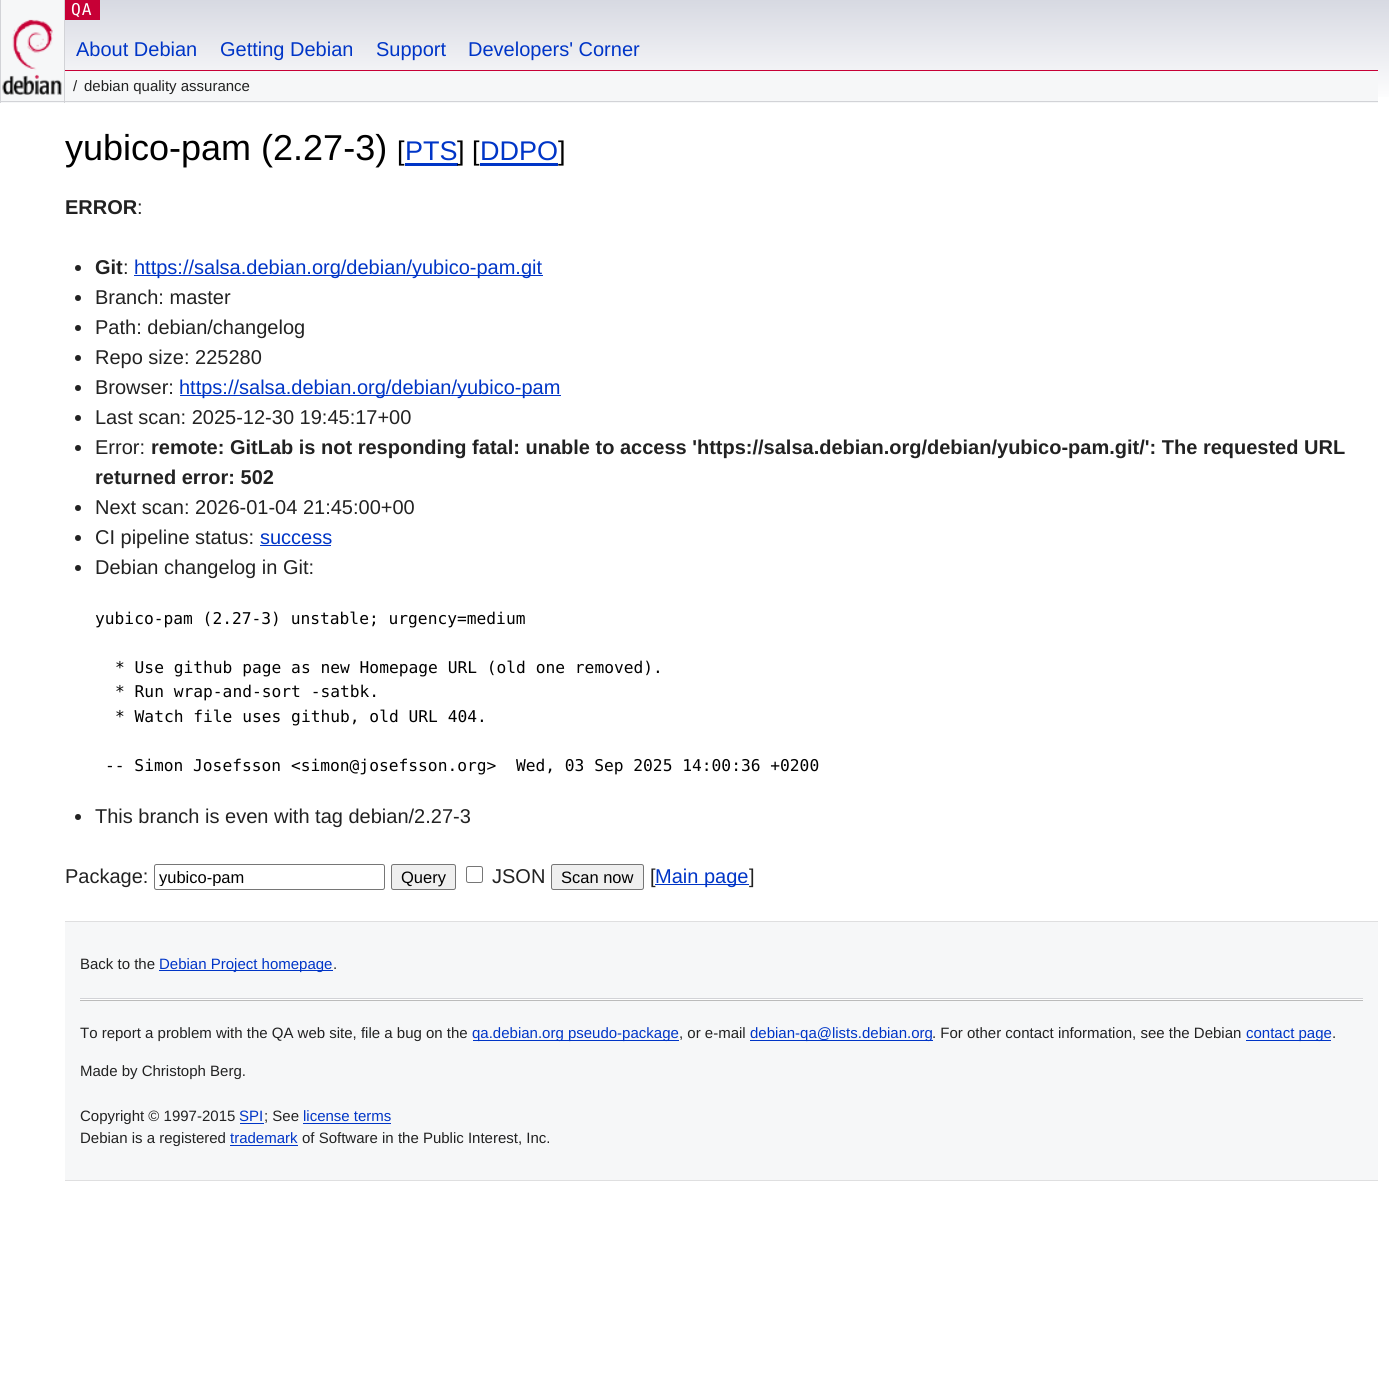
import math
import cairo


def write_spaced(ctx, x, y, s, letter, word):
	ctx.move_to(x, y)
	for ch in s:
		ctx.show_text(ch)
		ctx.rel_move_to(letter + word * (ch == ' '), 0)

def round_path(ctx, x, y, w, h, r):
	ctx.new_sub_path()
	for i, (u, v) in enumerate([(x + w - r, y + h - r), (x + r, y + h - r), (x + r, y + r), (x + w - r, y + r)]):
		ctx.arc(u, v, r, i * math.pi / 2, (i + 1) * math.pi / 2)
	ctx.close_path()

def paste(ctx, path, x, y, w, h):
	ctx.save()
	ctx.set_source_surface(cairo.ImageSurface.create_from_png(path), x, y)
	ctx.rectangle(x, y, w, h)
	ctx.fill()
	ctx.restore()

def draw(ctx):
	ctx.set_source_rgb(1, 1, 1)
	ctx.paint()
	gradient = cairo.LinearGradient(695, 0, 695, 103)
	gradient.add_color_stop_rgba(0, 0.843, 0.851, 0.886, 1)
	gradient.add_color_stop_rgba(1, 1, 1, 1, 1)
	ctx.set_source(gradient)
	ctx.rectangle(65, 0, 1324, 97)
	ctx.fill()
	ctx.set_source_rgb(0.961, 0.965, 0.969)
	ctx.rectangle(1, 0, 63, 103)
	ctx.fill()
	ctx.set_source_rgb(0.824, 0.827, 0.843)
	ctx.rectangle(64, 0, 1, 103)
	ctx.rectangle(0, 101, 65, 1)
	ctx.rectangle(0, 0, 1, 103)
	ctx.fill()
	paste(ctx, 'media/1.png', 2, 19, 60, 76)
	ctx.set_source_rgb(0.78, 0, 0.212)
	ctx.rectangle(65, 0, 35, 20)
	ctx.fill()
	ctx.select_font_face('DejaVu Sans Mono')
	ctx.set_font_size(16.25)
	ctx.set_source_rgb(1, 1, 1)
	write_spaced(ctx, 71, 15, 'QA', 1, 0)
	ctx.set_source_rgb(0.78, 0, 0.212)
	ctx.rectangle(65, 70, 1313, 1)
	ctx.fill()
	ctx.select_font_face('Liberation Sans')
	ctx.set_font_size(20)
	ctx.set_source_rgb(0, 0.208, 0.78)
	for x, y, s in [
		(76, 56, 'About Debian'),
		(220, 56, 'Getting Debian'),
		(376, 56, 'Support'),
		(468, 56, 'Developers\' Corner'),
	]:
		ctx.move_to(x, y)
		ctx.show_text(s)
	ctx.set_source_rgb(0.961, 0.965, 0.969)
	ctx.rectangle(65, 71, 1313, 32)
	ctx.fill()
	ctx.set_source_rgb(0.824, 0.827, 0.843)
	ctx.rectangle(65, 101, 1313, 1)
	ctx.fill()
	ctx.set_font_size(15)
	ctx.set_source_rgb(0.133, 0.133, 0.133)
	ctx.move_to(73, 91)
	ctx.show_text('/')
	ctx.move_to(84, 91)
	ctx.show_text('debian quality assurance')
	ctx.set_font_size(36)
	ctx.set_source_rgb(0, 0, 0)
	ctx.move_to(65, 160)
	ctx.show_text('yubico-pam (2.27-3)')
	ctx.set_font_size(27)
	ctx.move_to(397, 160)
	ctx.show_text('[')
	ctx.set_source_rgb(0, 0.208, 0.78)
	ctx.rectangle(405, 163, 53, 3)
	ctx.fill()
	ctx.move_to(405, 160)
	ctx.show_text('PTS')
	ctx.set_source_rgb(0, 0, 0)
	ctx.move_to(457, 160)
	ctx.show_text('] [')
	ctx.set_source_rgb(0, 0.208, 0.78)
	ctx.rectangle(480, 163, 78, 3)
	ctx.fill()
	ctx.move_to(480, 160)
	ctx.show_text('DDPO')
	ctx.set_source_rgb(0, 0, 0)
	ctx.move_to(558, 160)
	ctx.show_text(']')
	ctx.select_font_face('Liberation Sans', cairo.FONT_SLANT_NORMAL, cairo.FONT_WEIGHT_BOLD)
	ctx.set_font_size(20)
	ctx.set_source_rgb(0.133, 0.133, 0.133)
	ctx.move_to(65, 214)
	ctx.show_text('ERROR')
	ctx.select_font_face('Liberation Sans')
	ctx.move_to(137, 214)
	ctx.show_text(':')
	ctx.new_path()
	ctx.arc(78, 268, 3, 0, 2 * math.pi)
	ctx.fill()
	ctx.select_font_face('Liberation Sans', cairo.FONT_SLANT_NORMAL, cairo.FONT_WEIGHT_BOLD)
	ctx.move_to(95, 274)
	ctx.show_text('Git')
	ctx.select_font_face('Liberation Sans')
	ctx.move_to(123, 274)
	ctx.show_text(':')
	ctx.set_source_rgb(0, 0.208, 0.78)
	ctx.rectangle(134, 275, 409, 1)
	ctx.fill()
	ctx.move_to(134, 274)
	ctx.show_text('https://salsa.debian.org/debian/yubico-pam.git')
	ctx.set_source_rgb(0.133, 0.133, 0.133)
	ctx.new_path()
	ctx.arc(78, 298, 3, 0, 2 * math.pi)
	ctx.fill()
	ctx.move_to(95, 304)
	ctx.show_text('Branch: master')
	ctx.new_path()
	ctx.arc(78, 328, 3, 0, 2 * math.pi)
	ctx.fill()
	ctx.move_to(95, 334)
	ctx.show_text('Path: debian/changelog')
	ctx.new_path()
	ctx.arc(78, 358, 3, 0, 2 * math.pi)
	ctx.fill()
	ctx.move_to(95, 364)
	ctx.show_text('Repo size: 225280')
	ctx.new_path()
	ctx.arc(78, 388, 3, 0, 2 * math.pi)
	ctx.fill()
	ctx.move_to(95, 394)
	ctx.show_text('Browser:')
	ctx.set_source_rgb(0, 0.208, 0.78)
	ctx.rectangle(180, 395, 381, 1)
	ctx.fill()
	ctx.move_to(179, 394)
	ctx.show_text('https://salsa.debian.org/debian/yubico-pam')
	ctx.set_source_rgb(0.133, 0.133, 0.133)
	ctx.new_path()
	ctx.arc(78, 418, 3, 0, 2 * math.pi)
	ctx.fill()
	ctx.move_to(95, 424)
	ctx.show_text('Last scan: 2025-12-30 19:45:17+00')
	ctx.new_path()
	ctx.arc(78, 448, 3, 0, 2 * math.pi)
	ctx.fill()
	ctx.move_to(95, 454)
	ctx.show_text('Error:')
	ctx.select_font_face('Liberation Sans', cairo.FONT_SLANT_NORMAL, cairo.FONT_WEIGHT_BOLD)
	ctx.move_to(151, 454)
	ctx.show_text('remote: GitLab is not responding fatal: unable to access \'https://salsa.debian.org/debian/yubico-pam.git/\': The requested URL')
	ctx.move_to(95, 484)
	ctx.show_text('returned error: 502')
	ctx.new_path()
	ctx.arc(78, 508, 3, 0, 2 * math.pi)
	ctx.fill()
	ctx.select_font_face('Liberation Sans')
	ctx.move_to(95, 514)
	ctx.show_text('Next scan: 2026-01-04 21:45:00+00')
	ctx.new_path()
	ctx.arc(78, 538, 3, 0, 2 * math.pi)
	ctx.fill()
	ctx.move_to(95, 544)
	ctx.show_text('CI pipeline status:')
	ctx.set_source_rgb(0, 0.208, 0.78)
	ctx.move_to(260, 544)
	ctx.show_text('success')
	ctx.rectangle(260, 545, 71, 1)
	ctx.fill()
	ctx.set_source_rgb(0.133, 0.133, 0.133)
	ctx.arc(78, 568, 3, 0, 2 * math.pi)
	ctx.fill()
	ctx.move_to(95, 574)
	ctx.show_text('Debian changelog in Git:')
	ctx.select_font_face('DejaVu Sans Mono')
	ctx.set_font_size(16.25)
	ctx.set_source_rgb(0, 0, 0)
	for x, y, s in [
		(95, 624, 'yubico-pam (2.27-3) unstable; urgency=medium'),
		(115, 673, '* Use github page as new Homepage URL (old one removed).'),
		(115, 697, '* Run wrap-and-sort -satbk.'),
		(115, 722, '* Watch file uses github, old URL 404.'),
		(105, 771, '-- Simon Josefsson <simon@josefsson.org>  Wed, 03 Sep 2025 14:00:36 +0200'),
	]:
		ctx.move_to(x, y)
		ctx.show_text(s)
	ctx.set_source_rgb(0.133, 0.133, 0.133)
	ctx.new_path()
	ctx.arc(78, 817, 3, 0, 2 * math.pi)
	ctx.fill()
	ctx.select_font_face('Liberation Sans')
	ctx.set_font_size(20)
	ctx.move_to(95, 823)
	ctx.show_text('This branch is even with tag debian/2.27-3')
	ctx.move_to(65, 883)
	ctx.show_text('Package:')
	round_path(ctx, 154.5, 864.5, 230, 25, 2)
	ctx.set_source_rgb(0.463, 0.463, 0.463)
	ctx.set_line_width(1)
	ctx.stroke()
	ctx.save()
	ctx.rectangle(159, 868, 221, 18)
	ctx.clip()
	ctx.set_font_size(16.5)
	ctx.set_source_rgb(0, 0, 0)
	ctx.move_to(159, 883)
	ctx.show_text('yubico-pam')
	ctx.restore()
	ctx.set_source_rgb(0.937, 0.937, 0.937)
	round_path(ctx, 391.5, 864.5, 64, 25, 2)
	ctx.fill_preserve()
	ctx.set_source_rgb(0.463, 0.463, 0.463)
	ctx.stroke()
	ctx.set_font_size(16.5)
	ctx.set_source_rgb(0, 0, 0)
	ctx.move_to(401, 883)
	ctx.show_text('Query')
	round_path(ctx, 466.5, 866.5, 16, 16, 2)
	ctx.set_source_rgb(0.463, 0.463, 0.463)
	ctx.stroke()
	ctx.set_font_size(20)
	ctx.set_source_rgb(0.133, 0.133, 0.133)
	ctx.move_to(492, 883)
	ctx.show_text('JSON')
	ctx.set_source_rgb(0.937, 0.937, 0.937)
	round_path(ctx, 551.5, 864.5, 92, 25, 2)
	ctx.fill_preserve()
	ctx.set_source_rgb(0.463, 0.463, 0.463)
	ctx.stroke()
	ctx.set_font_size(16.5)
	ctx.set_source_rgb(0, 0, 0)
	ctx.move_to(561, 883)
	ctx.show_text('Scan now')
	ctx.set_font_size(20)
	ctx.set_source_rgb(0.133, 0.133, 0.133)
	ctx.move_to(650, 883)
	ctx.show_text('[')
	ctx.set_source_rgb(0, 0.208, 0.78)
	ctx.rectangle(655, 884, 94, 1)
	ctx.fill()
	ctx.move_to(655, 883)
	ctx.show_text('Main page')
	ctx.set_source_rgb(0.133, 0.133, 0.133)
	ctx.move_to(749, 883)
	ctx.show_text(']')
	ctx.set_source_rgb(0.961, 0.965, 0.969)
	ctx.rectangle(65, 922, 1313, 258)
	ctx.fill()
	ctx.set_source_rgb(0.875, 0.875, 0.878)
	ctx.rectangle(65, 921, 1313, 1)
	ctx.rectangle(65, 1180, 1313, 1)
	ctx.fill()
	ctx.set_font_size(15)
	ctx.set_source_rgb(0.133, 0.133, 0.133)
	ctx.move_to(80, 969)
	ctx.show_text('Back to the')
	ctx.set_source_rgb(0, 0.208, 0.78)
	ctx.rectangle(159, 970, 174, 1)
	ctx.fill()
	ctx.move_to(159, 969)
	ctx.show_text('Debian Project homepage')
	ctx.set_source_rgb(0.133, 0.133, 0.133)
	ctx.move_to(333, 969)
	ctx.show_text('.')
	ctx.set_source_rgb(0.733, 0.733, 0.733)
	ctx.rectangle(80, 1000, 1283, 1)
	ctx.fill()
	ctx.set_source_rgb(0.824, 0.827, 0.843)
	ctx.rectangle(80, 998, 1283, 1)
	ctx.fill()
	ctx.set_source_rgb(1, 1, 1)
	ctx.rectangle(80, 999, 1283, 1)
	ctx.fill()
	ctx.set_source_rgb(0.133, 0.133, 0.133)
	ctx.move_to(80, 1038)
	ctx.show_text('To report a problem with the QA web site, file a bug on the')
	ctx.set_source_rgb(0, 0.208, 0.78)
	ctx.rectangle(473, 1040, 206, 1)
	ctx.fill()
	ctx.move_to(472, 1038)
	ctx.show_text('qa.debian.org pseudo-package')
	ctx.set_source_rgb(0.133, 0.133, 0.133)
	ctx.move_to(679, 1038)
	ctx.show_text(', or e-mail')
	ctx.set_source_rgb(0, 0.208, 0.78)
	ctx.rectangle(750, 1040, 183, 1)
	ctx.fill()
	ctx.move_to(750, 1038)
	ctx.show_text('debian-qa@lists.debian.org')
	ctx.set_source_rgb(0.133, 0.133, 0.133)
	ctx.move_to(932, 1038)
	ctx.show_text('. For other contact information, see the Debian')
	ctx.set_source_rgb(0, 0.208, 0.78)
	ctx.rectangle(1246, 1040, 85, 1)
	ctx.fill()
	ctx.move_to(1246, 1038)
	ctx.show_text('contact page')
	ctx.set_source_rgb(0.133, 0.133, 0.133)
	for x, y, s in [
		(1332, 1038, '.'),
		(80, 1076, 'Made by Christoph Berg.'),
		(80, 1121, 'Copyright © 1997-2015'),
	]:
		ctx.move_to(x, y)
		ctx.show_text(s)
	ctx.set_source_rgb(0, 0.208, 0.78)
	ctx.move_to(239, 1121)
	ctx.show_text('SPI')
	ctx.rectangle(240, 1123, 24, 1)
	ctx.fill()
	ctx.set_source_rgb(0.133, 0.133, 0.133)
	ctx.move_to(264, 1121)
	ctx.show_text('; See')
	ctx.set_source_rgb(0, 0.208, 0.78)
	ctx.move_to(303, 1121)
	ctx.show_text('license terms')
	ctx.rectangle(303, 1123, 88, 1)
	ctx.fill()
	ctx.set_source_rgb(0.133, 0.133, 0.133)
	ctx.move_to(80, 1143)
	ctx.show_text('Debian is a registered')
	ctx.set_source_rgb(0, 0.208, 0.78)
	ctx.move_to(230, 1143)
	ctx.show_text('trademark')
	ctx.rectangle(230, 1145, 68, 1)
	ctx.fill()
	ctx.set_source_rgb(0.133, 0.133, 0.133)
	ctx.move_to(302, 1143)
	ctx.show_text('of Software in the Public Interest, Inc.')


surface = cairo.ImageSurface(cairo.FORMAT_RGB24, 1389, 1382)
ctx = cairo.Context(surface)
options = cairo.FontOptions()
options.set_hint_metrics(cairo.HINT_METRICS_OFF)
options.set_hint_style(cairo.HINT_STYLE_NONE)
ctx.set_font_options(options)
ctx.set_miter_limit(4)
draw(ctx)
surface.write_to_png('image.png')
